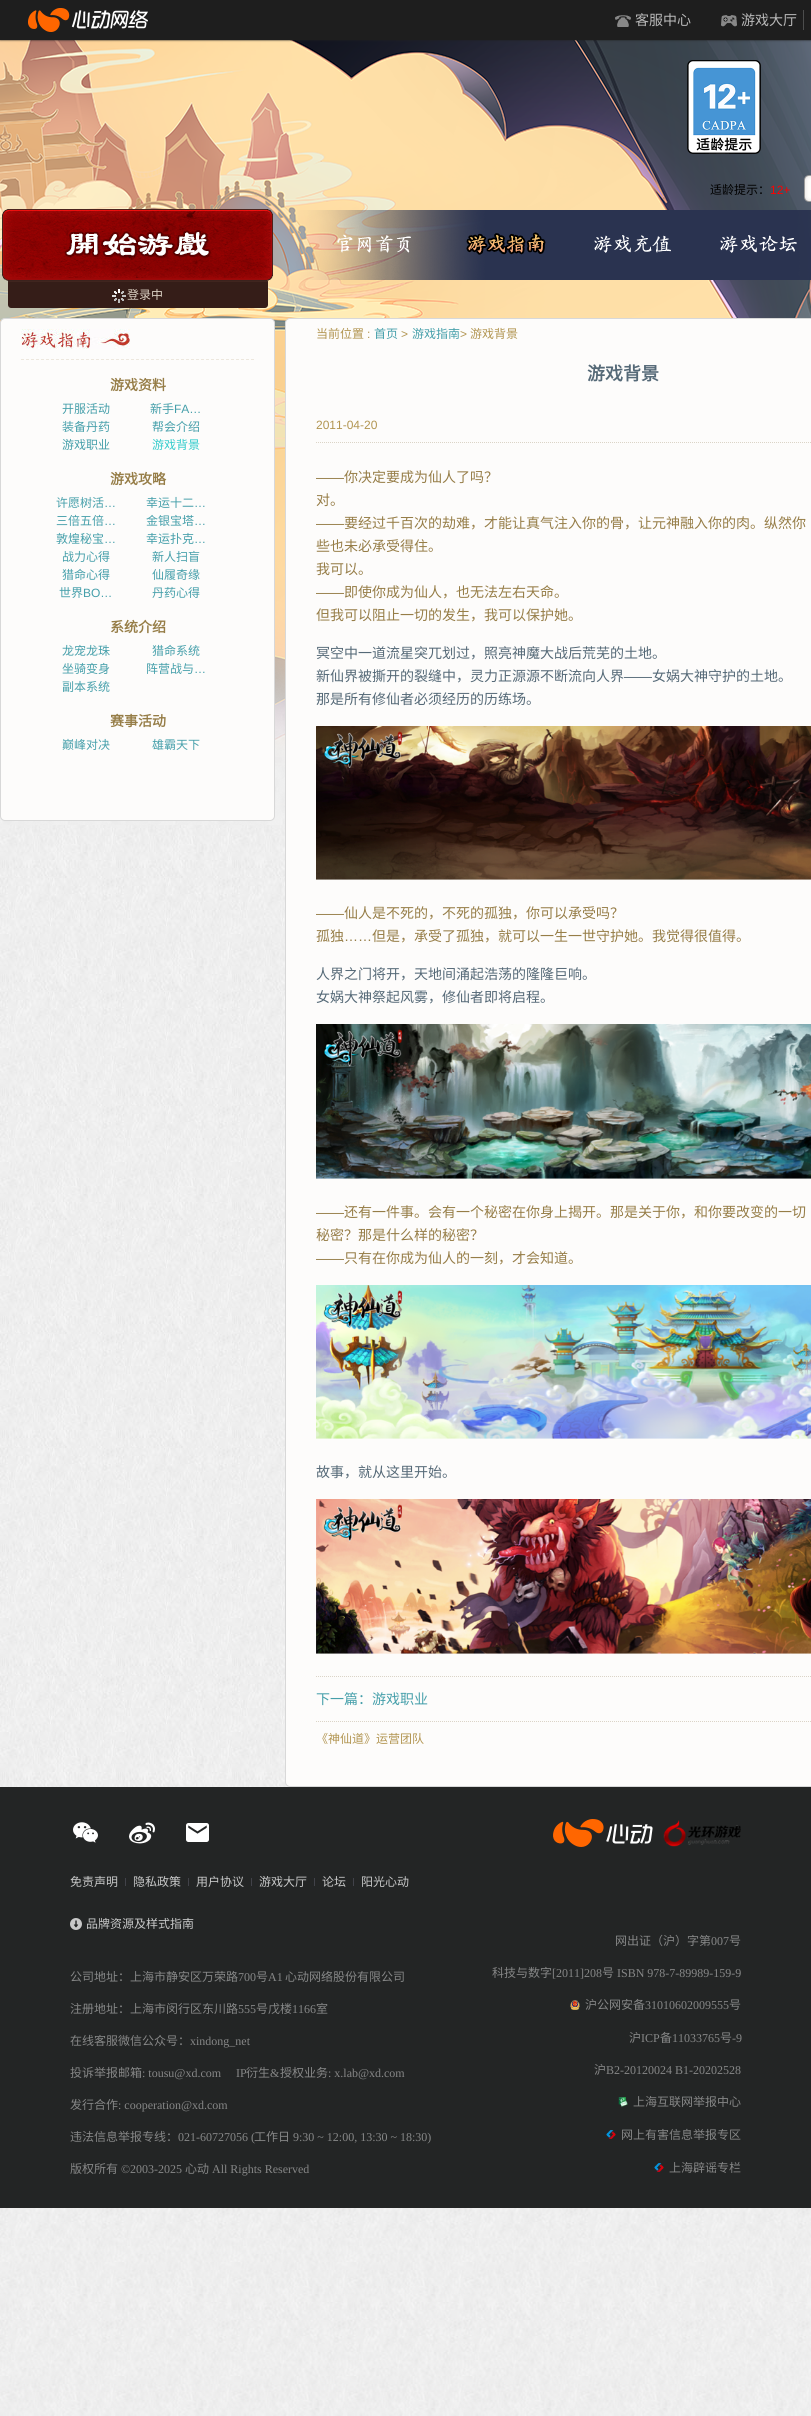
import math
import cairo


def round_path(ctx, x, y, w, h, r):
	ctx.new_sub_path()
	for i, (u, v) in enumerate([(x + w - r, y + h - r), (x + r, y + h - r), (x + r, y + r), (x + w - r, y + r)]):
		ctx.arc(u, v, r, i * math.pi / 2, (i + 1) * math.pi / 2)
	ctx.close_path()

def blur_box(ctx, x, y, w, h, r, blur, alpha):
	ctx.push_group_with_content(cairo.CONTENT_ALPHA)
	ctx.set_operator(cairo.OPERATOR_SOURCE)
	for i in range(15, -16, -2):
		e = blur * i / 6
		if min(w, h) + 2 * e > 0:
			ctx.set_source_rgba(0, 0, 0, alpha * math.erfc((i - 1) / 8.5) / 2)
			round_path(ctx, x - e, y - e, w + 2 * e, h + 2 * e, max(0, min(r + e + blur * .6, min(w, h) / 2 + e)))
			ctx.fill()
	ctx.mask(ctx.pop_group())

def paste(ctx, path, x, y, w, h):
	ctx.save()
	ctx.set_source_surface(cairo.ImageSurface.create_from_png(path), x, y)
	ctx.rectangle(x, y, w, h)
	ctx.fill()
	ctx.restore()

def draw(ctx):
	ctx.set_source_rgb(1, 1, 1)
	ctx.paint()
	paste(ctx, 'media/1.png', 0, 2208, 811, 208)
	paste(ctx, 'media/5.png', 0, 40, 50, 1)
	paste(ctx, 'media/7.png', 0, 40, 50, 1)
	paste(ctx, 'media/8.png', 0, 40, 811, 268)
	paste(ctx, 'media/9.png', 31, 40, 780, 268)
	ctx.set_source_rgb(0.118, 0.118, 0.118)
	blur_box(ctx, 0, 0, 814, 40, 0, 1, 1)
	ctx.set_source_rgb(0.118, 0.118, 0.118)
	ctx.rectangle(0, 0, 811, 40)
	ctx.fill()
	paste(ctx, 'media/2.png', 28, 8, 120, 24)
	paste(ctx, 'media/3.png', 615, 15, 16, 12)
	ctx.select_font_face('Noto Sans CJK SC')
	ctx.set_font_size(14)
	ctx.set_source_rgb(0.729, 0.729, 0.729)
	ctx.move_to(635, 25)
	ctx.show_text('客服中心')
	paste(ctx, 'media/4.png', 721, 15, 16, 12)
	ctx.set_source_rgb(0.298, 0.302, 0.302)
	ctx.rectangle(803, 10, 1, 20)
	ctx.fill()
	ctx.set_source_rgb(0.729, 0.729, 0.729)
	ctx.move_to(741, 25)
	ctx.show_text('游戏大厅')
	paste(ctx, 'media/6.png', 687, 60, 74, 94)
	ctx.set_font_size(12)
	ctx.set_source_rgb(0, 0, 0)
	ctx.move_to(710, 194)
	ctx.show_text('适龄提示：')
	ctx.select_font_face('Liberation Sans')
	ctx.set_source_rgb(1, 0, 0)
	ctx.move_to(770, 194)
	ctx.show_text('12+')
	paste(ctx, 'media/10.png', 804, 175, 7, 27)
	paste(ctx, 'media/11.png', 466, 232, 80, 23)
	paste(ctx, 'media/12.png', 2, 209, 271, 72)
	ctx.set_source_rgb(0.208, 0.114, 0.094)
	ctx.new_path()
	ctx.move_to(8, 282)
	ctx.line_to(268, 282)
	ctx.line_to(268, 305)
	ctx.curve_to(268, 306.5, 266.5, 308, 265, 308)
	ctx.line_to(11, 308)
	ctx.curve_to(9.5, 308, 8, 306.5, 8, 305)
	ctx.close_path()
	ctx.fill()
	ctx.set_source_rgb(0.251, 0.145, 0.122)
	ctx.rectangle(8, 281, 260, 1)
	ctx.fill()
	paste(ctx, 'media/13.png', 112, 289, 14, 14)
	ctx.select_font_face('Noto Sans CJK SC')
	ctx.set_source_rgb(0.867, 0.831, 0.776)
	ctx.move_to(127, 299)
	ctx.show_text('登录中')
	paste(ctx, 'media/14.png', 0, 825, 290, 962)
	paste(ctx, 'media/15.png', 0, 308, 285, 517)
	paste(ctx, 'media/16.png', 50, 308, 761, 19)
	ctx.set_source_rgb(0.992, 0.988, 0.984)
	round_path(ctx, 0.5, 318.5, 274, 502, 4.5)
	ctx.fill_preserve()
	ctx.set_source_rgb(0.847, 0.847, 0.847)
	ctx.set_line_width(1)
	ctx.stroke()
	ctx.new_path()
	ctx.move_to(21, 359.5)
	ctx.line_to(254, 359.5)
	ctx.set_source_rgb(0.929, 0.906, 0.867)
	ctx.set_dash([3, 2])
	ctx.stroke()
	paste(ctx, 'media/17.png', 21, 329, 109, 20)
	ctx.select_font_face('Noto Sans CJK SC', cairo.FONT_SLANT_NORMAL, cairo.FONT_WEIGHT_BOLD)
	ctx.set_font_size(14)
	ctx.set_source_rgb(0.588, 0.49, 0.278)
	ctx.move_to(110, 390)
	ctx.show_text('游戏资料')
	ctx.select_font_face('Noto Sans CJK SC')
	ctx.set_font_size(12)
	ctx.set_source_rgb(0.271, 0.624, 0.667)
	ctx.move_to(62, 413)
	ctx.show_text('开服活动')
	ctx.move_to(150, 413)
	ctx.show_text('新手')
	ctx.select_font_face('Liberation Sans')
	ctx.move_to(174, 413)
	ctx.show_text('FA…')
	ctx.select_font_face('Noto Sans CJK SC')
	for x, y, s in [
		(62, 431, '装备丹药'),
		(152, 431, '帮会介绍'),
		(62, 449, '游戏职业'),
	]:
		ctx.move_to(x, y)
		ctx.show_text(s)
	ctx.set_source_rgb(0.2, 0.8, 0.8)
	ctx.move_to(152, 449)
	ctx.show_text('游戏背景')
	ctx.select_font_face('Noto Sans CJK SC', cairo.FONT_SLANT_NORMAL, cairo.FONT_WEIGHT_BOLD)
	ctx.set_font_size(14)
	ctx.set_source_rgb(0.588, 0.49, 0.278)
	ctx.move_to(110, 484)
	ctx.show_text('游戏攻略')
	ctx.select_font_face('Noto Sans CJK SC')
	ctx.set_font_size(12)
	ctx.set_source_rgb(0.271, 0.624, 0.667)
	ctx.move_to(56, 507)
	ctx.show_text('许愿树活')
	ctx.select_font_face('Liberation Sans')
	ctx.move_to(104, 507)
	ctx.show_text('…')
	ctx.select_font_face('Noto Sans CJK SC')
	ctx.move_to(146, 507)
	ctx.show_text('幸运十二')
	ctx.select_font_face('Liberation Sans')
	ctx.move_to(194, 507)
	ctx.show_text('…')
	ctx.select_font_face('Noto Sans CJK SC')
	ctx.move_to(56, 525)
	ctx.show_text('三倍五倍')
	ctx.select_font_face('Liberation Sans')
	ctx.move_to(104, 525)
	ctx.show_text('…')
	ctx.select_font_face('Noto Sans CJK SC')
	ctx.move_to(146, 525)
	ctx.show_text('金银宝塔')
	ctx.select_font_face('Liberation Sans')
	ctx.move_to(194, 525)
	ctx.show_text('…')
	ctx.select_font_face('Noto Sans CJK SC')
	ctx.move_to(56, 543)
	ctx.show_text('敦煌秘宝')
	ctx.select_font_face('Liberation Sans')
	ctx.move_to(104, 543)
	ctx.show_text('…')
	ctx.select_font_face('Noto Sans CJK SC')
	ctx.move_to(146, 543)
	ctx.show_text('幸运扑克')
	ctx.select_font_face('Liberation Sans')
	ctx.move_to(194, 543)
	ctx.show_text('…')
	ctx.select_font_face('Noto Sans CJK SC')
	for x, y, s in [
		(62, 561, '战力心得'),
		(152, 561, '新人扫盲'),
		(62, 579, '猎命心得'),
		(152, 579, '仙履奇缘'),
		(59, 597, '世界'),
	]:
		ctx.move_to(x, y)
		ctx.show_text(s)
	ctx.select_font_face('Liberation Sans')
	ctx.move_to(83, 597)
	ctx.show_text('BO…')
	ctx.select_font_face('Noto Sans CJK SC')
	ctx.move_to(152, 597)
	ctx.show_text('丹药心得')
	ctx.select_font_face('Noto Sans CJK SC', cairo.FONT_SLANT_NORMAL, cairo.FONT_WEIGHT_BOLD)
	ctx.set_font_size(14)
	ctx.set_source_rgb(0.588, 0.49, 0.278)
	ctx.move_to(110, 632)
	ctx.show_text('系统介绍')
	ctx.select_font_face('Noto Sans CJK SC')
	ctx.set_font_size(12)
	ctx.set_source_rgb(0.271, 0.624, 0.667)
	for x, y, s in [
		(62, 655, '龙宠龙珠'),
		(152, 655, '猎命系统'),
		(62, 673, '坐骑变身'),
		(146, 673, '阵营战与'),
	]:
		ctx.move_to(x, y)
		ctx.show_text(s)
	ctx.select_font_face('Liberation Sans')
	ctx.move_to(194, 673)
	ctx.show_text('…')
	ctx.select_font_face('Noto Sans CJK SC')
	ctx.move_to(62, 691)
	ctx.show_text('副本系统')
	ctx.select_font_face('Noto Sans CJK SC', cairo.FONT_SLANT_NORMAL, cairo.FONT_WEIGHT_BOLD)
	ctx.set_font_size(14)
	ctx.set_source_rgb(0.588, 0.49, 0.278)
	ctx.move_to(110, 726)
	ctx.show_text('赛事活动')
	ctx.select_font_face('Noto Sans CJK SC')
	ctx.set_font_size(12)
	ctx.set_source_rgb(0.271, 0.624, 0.667)
	ctx.move_to(62, 749)
	ctx.show_text('巅峰对决')
	ctx.move_to(152, 749)
	ctx.show_text('雄霸天下')
	ctx.set_source_rgb(0.992, 0.988, 0.984)
	round_path(ctx, 285.5, 318.5, 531, 1468, 4.5)
	ctx.fill_preserve()
	ctx.set_source_rgb(0.847, 0.847, 0.847)
	ctx.set_dash([])
	ctx.stroke()
	ctx.set_source_rgb(0.698, 0.584, 0.318)
	ctx.move_to(316, 338)
	ctx.show_text('当前位置')
	ctx.select_font_face('Liberation Sans')
	ctx.move_to(367, 338)
	ctx.show_text(':')
	ctx.select_font_face('Noto Sans CJK SC')
	ctx.set_source_rgb(0.271, 0.624, 0.667)
	ctx.move_to(374, 338)
	ctx.show_text('首页')
	ctx.select_font_face('Liberation Sans')
	ctx.set_source_rgb(0.698, 0.584, 0.318)
	ctx.move_to(401, 338)
	ctx.show_text('>')
	ctx.select_font_face('Noto Sans CJK SC')
	ctx.set_source_rgb(0.271, 0.624, 0.667)
	ctx.move_to(412, 338)
	ctx.show_text('游戏指南')
	ctx.select_font_face('Liberation Sans')
	ctx.set_source_rgb(0.698, 0.584, 0.318)
	ctx.move_to(460, 338)
	ctx.show_text('>')
	ctx.select_font_face('Noto Sans CJK SC')
	ctx.move_to(470, 338)
	ctx.show_text('游戏背景')
	ctx.select_font_face('Noto Sans CJK SC', cairo.FONT_SLANT_NORMAL, cairo.FONT_WEIGHT_BOLD)
	ctx.set_font_size(18)
	ctx.set_source_rgb(0.333, 0.412, 0.467)
	ctx.move_to(587, 380)
	ctx.show_text('游戏背景')
	ctx.select_font_face('Liberation Sans')
	ctx.set_font_size(12)
	ctx.set_source_rgb(0.698, 0.584, 0.318)
	ctx.move_to(316, 429)
	ctx.show_text('2011-04-20')
	ctx.new_path()
	ctx.move_to(316, 442.5)
	ctx.line_to(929, 442.5)
	ctx.set_source_rgb(0.859, 0.831, 0.78)
	ctx.set_dash([1, 1])
	ctx.stroke()
	ctx.new_path()
	ctx.move_to(316, 1721.5)
	ctx.line_to(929, 1721.5)
	ctx.stroke()
	ctx.set_font_size(14)
	ctx.set_source_rgb(0.588, 0.49, 0.278)
	ctx.move_to(316, 482)
	ctx.show_text('——')
	ctx.select_font_face('Noto Sans CJK SC')
	ctx.move_to(344, 482)
	ctx.show_text('你决定要成为仙人了吗？')
	ctx.move_to(316, 505)
	ctx.show_text('对。')
	ctx.select_font_face('Liberation Sans')
	ctx.move_to(316, 528)
	ctx.show_text('——')
	ctx.select_font_face('Noto Sans CJK SC')
	for x, y, s in [
		(344, 528, '要经过千百次的劫难，才能让真气注入你的骨，让元神融入你的肉。纵然你'),
		(316, 551, '些也未必承受得住。'),
		(316, 574, '我可以。'),
	]:
		ctx.move_to(x, y)
		ctx.show_text(s)
	ctx.select_font_face('Liberation Sans')
	ctx.move_to(316, 597)
	ctx.show_text('——')
	ctx.select_font_face('Noto Sans CJK SC')
	ctx.move_to(344, 597)
	ctx.show_text('即使你成为仙人，也无法左右天命。')
	ctx.move_to(316, 620)
	ctx.show_text('但我可以阻止一切的发生，我可以保护她。')
	ctx.set_source_rgb(0.333, 0.412, 0.467)
	ctx.move_to(316, 658)
	ctx.show_text('冥空中一道流星突兀划过，照亮神魔大战后荒芜的土地。')
	ctx.move_to(316, 681)
	ctx.show_text('新仙界被撕开的裂缝中，灵力正源源不断流向人界')
	ctx.select_font_face('Liberation Sans')
	ctx.move_to(624, 681)
	ctx.show_text('——')
	ctx.select_font_face('Noto Sans CJK SC')
	ctx.move_to(652, 681)
	ctx.show_text('女娲大神守护的土地。')
	ctx.move_to(316, 704)
	ctx.show_text('那是所有修仙者必须经历的历练场。')
	paste(ctx, 'media/18.png', 316, 726, 495, 154)
	ctx.select_font_face('Liberation Sans')
	ctx.set_source_rgb(0.588, 0.49, 0.278)
	ctx.move_to(316, 918)
	ctx.show_text('——')
	ctx.select_font_face('Noto Sans CJK SC')
	ctx.move_to(344, 918)
	ctx.show_text('仙人是不死的，不死的孤独，你可以承受吗？')
	ctx.move_to(316, 941)
	ctx.show_text('孤独')
	ctx.select_font_face('Liberation Sans')
	ctx.move_to(344, 941)
	ctx.show_text('……')
	ctx.select_font_face('Noto Sans CJK SC')
	ctx.move_to(372, 941)
	ctx.show_text('但是，承受了孤独，就可以一生一世守护她。我觉得很值得。')
	ctx.set_source_rgb(0.333, 0.412, 0.467)
	ctx.move_to(316, 979)
	ctx.show_text('人界之门将开，天地间涌起浩荡的隆隆巨响。')
	ctx.move_to(316, 1002)
	ctx.show_text('女娲大神祭起风雾，修仙者即将启程。')
	paste(ctx, 'media/19.png', 316, 1024, 495, 155)
	ctx.select_font_face('Liberation Sans')
	ctx.set_source_rgb(0.588, 0.49, 0.278)
	ctx.move_to(316, 1217)
	ctx.show_text('——')
	ctx.select_font_face('Noto Sans CJK SC')
	ctx.move_to(344, 1217)
	ctx.show_text('还有一件事。会有一个秘密在你身上揭开。那是关于你，和你要改变的一切')
	ctx.move_to(316, 1240)
	ctx.show_text('秘密？那是什么样的秘密？')
	ctx.select_font_face('Liberation Sans')
	ctx.move_to(316, 1263)
	ctx.show_text('——')
	ctx.select_font_face('Noto Sans CJK SC')
	ctx.move_to(344, 1263)
	ctx.show_text('只有在你成为仙人的一刻，才会知道。')
	paste(ctx, 'media/20.png', 316, 1285, 495, 154)
	ctx.set_source_rgb(0.333, 0.412, 0.467)
	ctx.move_to(316, 1477)
	ctx.show_text('故事，就从这里开始。')
	paste(ctx, 'media/21.png', 316, 1499, 495, 155)
	ctx.new_path()
	ctx.move_to(316, 1676.5)
	ctx.line_to(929, 1676.5)
	ctx.set_source_rgb(0.859, 0.831, 0.78)
	ctx.stroke()
	ctx.set_source_rgb(0.271, 0.624, 0.667)
	ctx.move_to(316, 1704)
	ctx.show_text('下一篇：游戏职业')
	ctx.set_font_size(12)
	ctx.set_source_rgb(0.698, 0.584, 0.318)
	ctx.move_to(316, 1743)
	ctx.show_text('《神仙道》运营团队')
	ctx.set_source_rgb(0.137, 0.145, 0.145)
	ctx.rectangle(0, 1787, 811, 421)
	ctx.fill()
	paste(ctx, 'media/22.png', 73, 1822, 25, 21)
	paste(ctx, 'media/23.png', 129, 1822, 26, 22)
	paste(ctx, 'media/24.png', 186, 1823, 23, 19)
	paste(ctx, 'media/25.png', 553, 1819, 100, 28)
	paste(ctx, 'media/26.png', 663, 1820, 78, 27)
	ctx.set_source_rgb(0.784, 0.788, 0.788)
	ctx.move_to(70, 1886)
	ctx.show_text('免责声明')
	ctx.set_source_rgb(0.255, 0.259, 0.286)
	ctx.rectangle(125, 1878, 1, 8)
	ctx.fill()
	ctx.set_source_rgb(0.784, 0.788, 0.788)
	ctx.move_to(133, 1886)
	ctx.show_text('隐私政策')
	ctx.set_source_rgb(0.255, 0.259, 0.286)
	ctx.rectangle(188, 1878, 1, 8)
	ctx.fill()
	ctx.set_source_rgb(0.784, 0.788, 0.788)
	ctx.move_to(196, 1886)
	ctx.show_text('用户协议')
	ctx.set_source_rgb(0.255, 0.259, 0.286)
	ctx.rectangle(251, 1878, 1, 8)
	ctx.fill()
	ctx.set_source_rgb(0.784, 0.788, 0.788)
	ctx.move_to(259, 1886)
	ctx.show_text('游戏大厅')
	ctx.set_source_rgb(0.255, 0.259, 0.286)
	ctx.rectangle(314, 1878, 1, 8)
	ctx.fill()
	ctx.set_source_rgb(0.784, 0.788, 0.788)
	ctx.move_to(322, 1886)
	ctx.show_text('论坛')
	ctx.set_source_rgb(0.255, 0.259, 0.286)
	ctx.rectangle(353, 1878, 1, 8)
	ctx.fill()
	ctx.set_source_rgb(0.784, 0.788, 0.788)
	ctx.move_to(361, 1886)
	ctx.show_text('阳光心动')
	paste(ctx, 'media/27.png', 70, 1918, 12, 12)
	ctx.move_to(86, 1928)
	ctx.show_text('品牌资源及样式指南')
	ctx.set_source_rgb(0.525, 0.529, 0.529)
	ctx.move_to(70, 1981)
	ctx.show_text('公司地址：上海市静安区万荣路')
	ctx.select_font_face('Liberation Serif')
	ctx.move_to(238, 1981)
	ctx.show_text('700')
	ctx.select_font_face('Noto Sans CJK SC')
	ctx.move_to(256, 1981)
	ctx.show_text('号')
	ctx.select_font_face('Liberation Serif')
	ctx.move_to(268, 1981)
	ctx.show_text('A1')
	ctx.select_font_face('Noto Sans CJK SC')
	ctx.move_to(285, 1981)
	ctx.show_text('心动网络股份有限公司')
	ctx.move_to(70, 2013)
	ctx.show_text('注册地址：上海市闵行区东川路')
	ctx.select_font_face('Liberation Serif')
	ctx.move_to(238, 2013)
	ctx.show_text('555')
	ctx.select_font_face('Noto Sans CJK SC')
	ctx.move_to(256, 2013)
	ctx.show_text('号戊楼')
	ctx.select_font_face('Liberation Serif')
	ctx.move_to(292, 2013)
	ctx.show_text('1166')
	ctx.select_font_face('Noto Sans CJK SC')
	ctx.move_to(316, 2013)
	ctx.show_text('室')
	ctx.move_to(70, 2045)
	ctx.show_text('在线客服微信公众号：')
	ctx.select_font_face('Liberation Serif')
	ctx.move_to(190, 2045)
	ctx.show_text('xindong_net')
	ctx.select_font_face('Noto Sans CJK SC')
	ctx.move_to(70, 2077)
	ctx.show_text('投诉举报邮箱')
	ctx.select_font_face('Liberation Serif')
	ctx.move_to(142, 2077)
	ctx.show_text(': tousu@xd.com')
	ctx.move_to(236, 2077)
	ctx.show_text('IP')
	ctx.select_font_face('Noto Sans CJK SC')
	ctx.move_to(246, 2077)
	ctx.show_text('衍生')
	ctx.select_font_face('Liberation Serif')
	ctx.move_to(270, 2077)
	ctx.show_text('&')
	ctx.select_font_face('Noto Sans CJK SC')
	ctx.move_to(280, 2077)
	ctx.show_text('授权业务')
	ctx.select_font_face('Liberation Serif')
	ctx.move_to(328, 2077)
	ctx.show_text(': x.lab@xd.com')
	ctx.select_font_face('Noto Sans CJK SC')
	ctx.move_to(70, 2109)
	ctx.show_text('发行合作')
	ctx.select_font_face('Liberation Serif')
	ctx.move_to(118, 2109)
	ctx.show_text(': cooperation@xd.com')
	ctx.select_font_face('Noto Sans CJK SC')
	ctx.move_to(70, 2141)
	ctx.show_text('违法信息举报专线：')
	ctx.select_font_face('Liberation Serif')
	ctx.move_to(178, 2141)
	ctx.show_text('021-60727056 (')
	ctx.select_font_face('Noto Sans CJK SC')
	ctx.move_to(254, 2141)
	ctx.show_text('工作日')
	ctx.select_font_face('Liberation Serif')
	ctx.move_to(293, 2141)
	ctx.show_text('9:30 ~ 12:00, 13:30 ~ 18:30)')
	ctx.select_font_face('Noto Sans CJK SC')
	ctx.move_to(615, 1945)
	ctx.show_text('网出证（沪）字第')
	ctx.select_font_face('Liberation Serif')
	ctx.move_to(711, 1945)
	ctx.show_text('007')
	ctx.select_font_face('Noto Sans CJK SC')
	ctx.move_to(729, 1945)
	ctx.show_text('号')
	ctx.move_to(492, 1977)
	ctx.show_text('科技与数字')
	ctx.select_font_face('Liberation Serif')
	ctx.move_to(552, 1977)
	ctx.show_text('[2011]208')
	ctx.select_font_face('Noto Sans CJK SC')
	ctx.move_to(602, 1977)
	ctx.show_text('号')
	ctx.select_font_face('Liberation Serif')
	ctx.move_to(617, 1977)
	ctx.show_text('ISBN 978-7-89989-159-9')
	paste(ctx, 'media/28.png', 570, 2000, 10, 10)
	ctx.select_font_face('Noto Sans CJK SC')
	ctx.move_to(585, 2009)
	ctx.show_text('沪公网安备')
	ctx.select_font_face('Liberation Serif')
	ctx.move_to(645, 2009)
	ctx.show_text('31010602009555')
	ctx.select_font_face('Noto Sans CJK SC')
	ctx.move_to(729, 2009)
	ctx.show_text('号')
	ctx.move_to(629, 2042)
	ctx.show_text('沪')
	ctx.select_font_face('Liberation Serif')
	ctx.move_to(641, 2042)
	ctx.show_text('ICP')
	ctx.select_font_face('Noto Sans CJK SC')
	ctx.move_to(660, 2042)
	ctx.show_text('备')
	ctx.select_font_face('Liberation Serif')
	ctx.move_to(672, 2042)
	ctx.show_text('11033765')
	ctx.select_font_face('Noto Sans CJK SC')
	ctx.move_to(720, 2042)
	ctx.show_text('号')
	ctx.select_font_face('Liberation Serif')
	ctx.move_to(732, 2042)
	ctx.show_text('-9')
	ctx.select_font_face('Noto Sans CJK SC')
	ctx.move_to(594, 2074)
	ctx.show_text('沪')
	ctx.select_font_face('Liberation Serif')
	ctx.move_to(606, 2074)
	ctx.show_text('B2-20120024 B1-20202528')
	paste(ctx, 'media/29.png', 618, 2097, 10, 10)
	ctx.select_font_face('Noto Sans CJK SC')
	ctx.move_to(633, 2106)
	ctx.show_text('上海互联网举报中心')
	paste(ctx, 'media/30.png', 606, 2130, 10, 9)
	ctx.move_to(621, 2139)
	ctx.show_text('网上有害信息举报专区')
	paste(ctx, 'media/30.png', 654, 2163, 10, 9)
	ctx.move_to(669, 2172)
	ctx.show_text('上海辟谣专栏')
	ctx.move_to(70, 2173)
	ctx.show_text('版权所有')
	ctx.select_font_face('Liberation Serif')
	ctx.move_to(121, 2173)
	ctx.show_text('©2003-2025')
	ctx.select_font_face('Noto Sans CJK SC')
	ctx.move_to(185, 2173)
	ctx.show_text('心动')
	ctx.select_font_face('Liberation Serif')
	ctx.move_to(212, 2173)
	ctx.show_text('All Rights Reserved')


surface = cairo.ImageSurface(cairo.FORMAT_RGB24, 811, 2416)
ctx = cairo.Context(surface)
options = cairo.FontOptions()
options.set_hint_metrics(cairo.HINT_METRICS_OFF)
options.set_hint_style(cairo.HINT_STYLE_NONE)
ctx.set_font_options(options)
ctx.set_miter_limit(4)
draw(ctx)
surface.write_to_png('image.png')
